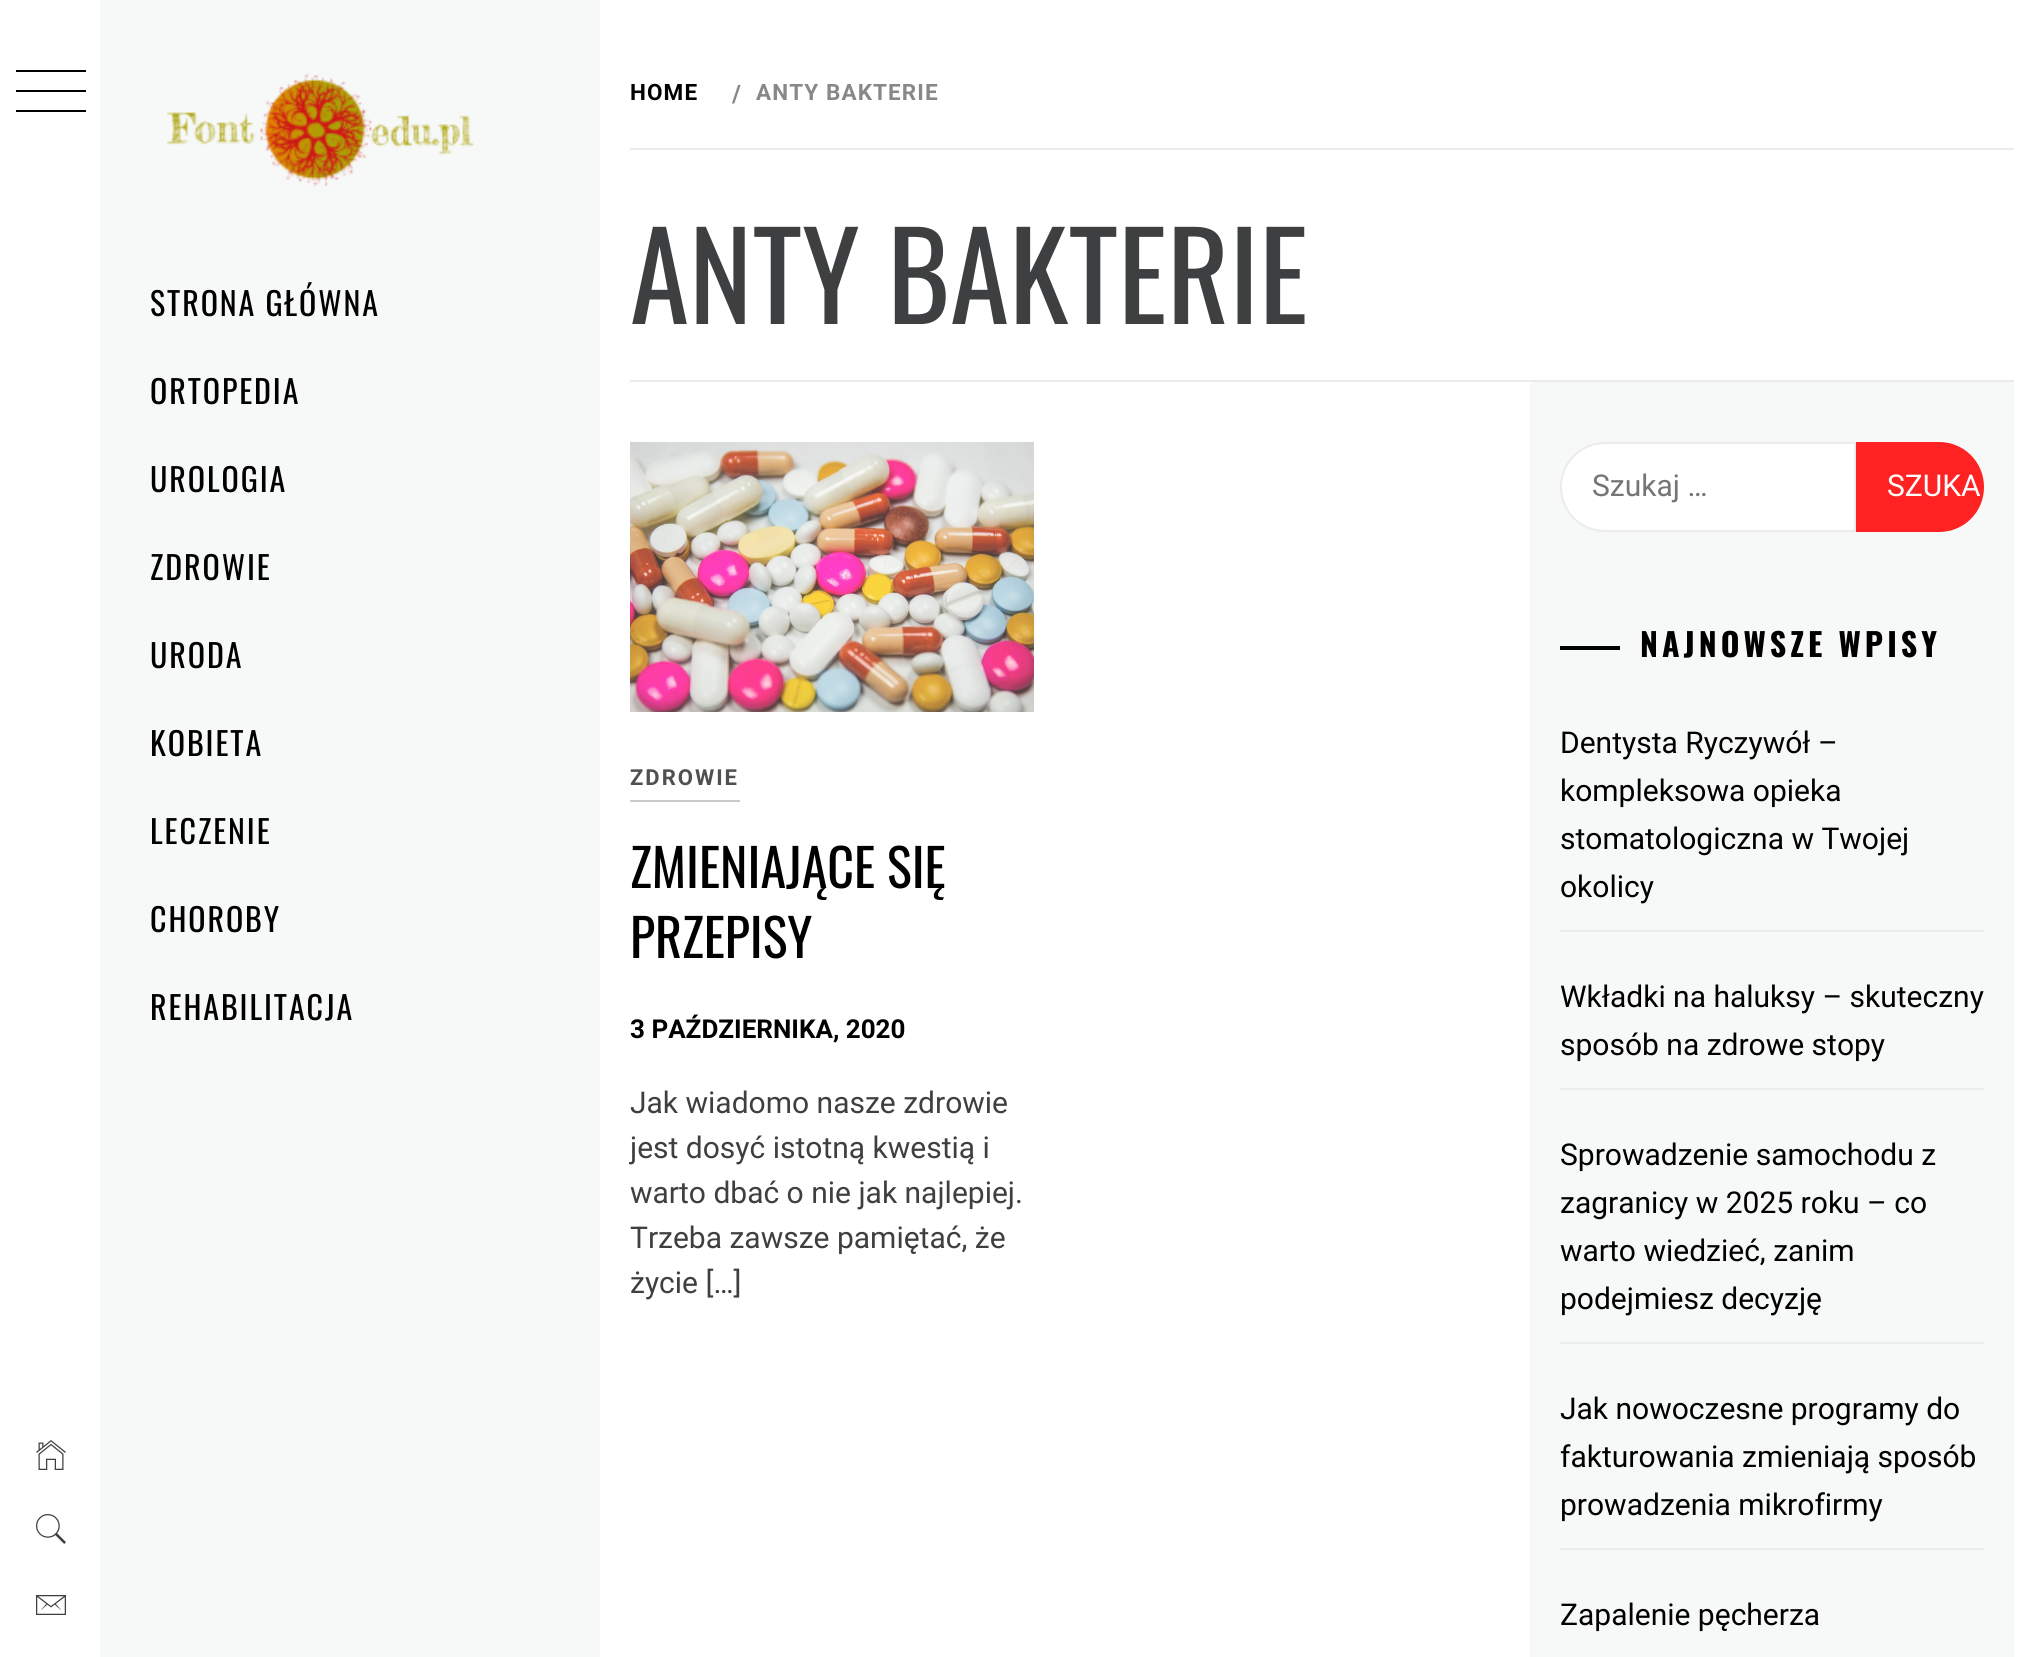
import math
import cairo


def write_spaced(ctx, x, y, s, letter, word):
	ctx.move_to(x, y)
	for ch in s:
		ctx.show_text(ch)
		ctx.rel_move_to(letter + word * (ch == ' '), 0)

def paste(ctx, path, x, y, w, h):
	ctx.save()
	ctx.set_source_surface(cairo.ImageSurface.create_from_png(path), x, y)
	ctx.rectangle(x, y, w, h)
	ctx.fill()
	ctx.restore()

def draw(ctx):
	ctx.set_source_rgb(1, 1, 1)
	ctx.paint()
	ctx.set_source_rgb(0, 0, 0)
	ctx.rectangle(16, 70, 70, 2)
	ctx.rectangle(16, 90, 70, 2)
	ctx.rectangle(16, 110, 70, 2)
	ctx.fill()
	paste(ctx, 'media/1.png', 36, 1440, 30, 30)
	paste(ctx, 'media/2.png', 36, 1514, 30, 30)
	paste(ctx, 'media/3.png', 36, 1595, 30, 20)
	ctx.set_source_rgb(0.965, 0.973, 0.976)
	ctx.rectangle(100, 0, 500, 1657)
	ctx.fill()
	paste(ctx, 'media/4.png', 166, 73, 308, 114)
	ctx.select_font_face('Oswald')
	ctx.set_font_size(32)
	ctx.set_source_rgb(0, 0, 0)
	for x, y, s in [
		(150, 316, 'STRONA GŁÓWNA'),
		(150, 404, 'ORTOPEDIA'),
		(150, 492, 'UROLOGIA'),
		(150, 580, 'ZDROWIE'),
		(150, 668, 'URODA'),
		(150, 756, 'KOBIETA'),
		(150, 844, 'LECZENIE'),
		(150, 932, 'CHOROBY'),
		(150, 1020, 'REHABILITACJA'),
	]:
		write_spaced(ctx, x, y, s, 1.9, 0)
	ctx.set_source_rgb(0.918, 0.918, 0.918)
	ctx.rectangle(630, 380, 1384, 2)
	ctx.fill()
	ctx.rectangle(630, 148, 1384, 2)
	ctx.fill()
	ctx.select_font_face('Roboto', cairo.FONT_SLANT_NORMAL, cairo.FONT_WEIGHT_BOLD)
	ctx.set_font_size(22.5)
	ctx.set_source_rgb(0, 0, 0)
	write_spaced(ctx, 630, 100, 'HOME', 1.1, 0)
	ctx.set_font_size(24)
	ctx.set_source_rgb(0.533, 0.533, 0.533)
	write_spaced(ctx, 732, 102, '/', 1.1, 0)
	ctx.set_font_size(22.5)
	write_spaced(ctx, 756, 100, 'ANTY BAKTERIE', 1.1, 0)
	ctx.select_font_face('Oswald')
	ctx.set_font_size(120)
	ctx.set_source_rgb(0.243, 0.247, 0.251)
	ctx.move_to(630, 324)
	ctx.show_text('ANTY BAKTERIE')
	paste(ctx, 'media/5.png', 630, 442, 404, 270)
	ctx.set_source_rgb(0.792, 0.792, 0.792)
	ctx.rectangle(630, 800, 110, 2)
	ctx.fill()
	ctx.select_font_face('Roboto', cairo.FONT_SLANT_NORMAL, cairo.FONT_WEIGHT_BOLD)
	ctx.set_font_size(22)
	ctx.set_source_rgb(0.314, 0.314, 0.314)
	write_spaced(ctx, 630, 785, 'ZDROWIE', 2, 0)
	ctx.select_font_face('Oswald')
	ctx.set_font_size(52)
	ctx.set_source_rgb(0, 0, 0)
	ctx.move_to(630, 888)
	ctx.show_text('ZMIENIAJĄCE SIĘ')
	ctx.move_to(630, 958)
	ctx.show_text('PRZEPISY')
	ctx.select_font_face('Roboto', cairo.FONT_SLANT_NORMAL, cairo.FONT_WEIGHT_BOLD)
	ctx.set_font_size(26)
	ctx.move_to(630, 1038)
	ctx.show_text('3 PAŹDZIERNIKA, 2020')
	ctx.select_font_face('Roboto')
	ctx.set_font_size(30)
	ctx.set_source_rgb(0.243, 0.247, 0.251)
	for x, y, s in [
		(630, 1113, 'Jak wiadomo nasze zdrowie'),
		(630, 1158, 'jest dosyć istotną kwestią i'),
		(630, 1203, 'warto dbać o nie jak najlepiej.'),
		(630, 1248, 'Trzeba zawsze pamiętać, że'),
		(630, 1293, 'życie […]'),
	]:
		ctx.move_to(x, y)
		ctx.show_text(s)
	ctx.set_source_rgb(0.965, 0.973, 0.976)
	ctx.rectangle(1530, 382, 484, 1275)
	ctx.fill()
	ctx.set_source_rgb(1, 1, 1)
	ctx.new_path()
	ctx.move_to(1605, 443)
	ctx.line_to(1855, 443)
	ctx.line_to(1855, 531)
	ctx.line_to(1605, 531)
	ctx.curve_to(1580.5, 531, 1561, 511.5, 1561, 487)
	ctx.curve_to(1561, 462.5, 1580.5, 443, 1605, 443)
	ctx.close_path()
	ctx.fill_preserve()
	ctx.set_source_rgb(0.918, 0.918, 0.918)
	ctx.stroke()
	ctx.set_source_rgb(0.459, 0.459, 0.459)
	ctx.move_to(1592, 496)
	ctx.show_text('Szukaj …')
	ctx.set_source_rgb(1, 0.133, 0.133)
	ctx.new_path()
	ctx.move_to(1856, 442)
	ctx.line_to(1939, 442)
	ctx.curve_to(1964, 442, 1984, 462, 1984, 487)
	ctx.curve_to(1984, 512, 1964, 532, 1939, 532)
	ctx.line_to(1856, 532)
	ctx.close_path()
	ctx.fill()
	ctx.set_source_rgb(1, 1, 1)
	ctx.move_to(1887, 496)
	ctx.show_text('SZUKA')
	ctx.set_source_rgb(0, 0, 0)
	ctx.rectangle(1560, 646, 60, 4)
	ctx.fill()
	ctx.select_font_face('Oswald', cairo.FONT_SLANT_NORMAL, cairo.FONT_WEIGHT_BOLD)
	ctx.set_font_size(32)
	write_spaced(ctx, 1640, 657, 'NAJNOWSZE WPISY', 4, 0)
	ctx.set_source_rgb(0.918, 0.918, 0.918)
	ctx.rectangle(1560, 930, 424, 2)
	ctx.fill()
	ctx.select_font_face('Roboto')
	ctx.set_font_size(30)
	ctx.set_source_rgb(0, 0, 0)
	for x, y, s in [
		(1560, 753, 'Dentysta Ryczywół –'),
		(1560, 801, 'kompleksowa opieka'),
		(1560, 849, 'stomatologiczna w Twojej'),
		(1560, 897, 'okolicy'),
	]:
		ctx.move_to(x, y)
		ctx.show_text(s)
	ctx.set_source_rgb(0.918, 0.918, 0.918)
	ctx.rectangle(1560, 1088, 424, 2)
	ctx.fill()
	ctx.set_source_rgb(0, 0, 0)
	ctx.move_to(1560, 1007)
	ctx.show_text('Wkładki na haluksy – skuteczny')
	ctx.move_to(1560, 1055)
	ctx.show_text('sposób na zdrowe stopy')
	ctx.set_source_rgb(0.918, 0.918, 0.918)
	ctx.rectangle(1560, 1342, 424, 2)
	ctx.fill()
	ctx.set_source_rgb(0, 0, 0)
	for x, y, s in [
		(1560, 1165, 'Sprowadzenie samochodu z'),
		(1560, 1213, 'zagranicy w 2025 roku – co'),
		(1560, 1261, 'warto wiedzieć, zanim'),
		(1560, 1309, 'podejmiesz decyzję'),
	]:
		ctx.move_to(x, y)
		ctx.show_text(s)
	ctx.set_source_rgb(0.918, 0.918, 0.918)
	ctx.rectangle(1560, 1548, 424, 2)
	ctx.fill()
	ctx.set_source_rgb(0, 0, 0)
	for x, y, s in [
		(1560, 1419, 'Jak nowoczesne programy do'),
		(1560, 1467, 'fakturowania zmieniają sposób'),
		(1560, 1515, 'prowadzenia mikrofirmy'),
		(1560, 1625, 'Zapalenie pęcherza'),
	]:
		ctx.move_to(x, y)
		ctx.show_text(s)


surface = cairo.ImageSurface(cairo.FORMAT_RGB24, 2044, 1657)
ctx = cairo.Context(surface)
options = cairo.FontOptions()
options.set_hint_metrics(cairo.HINT_METRICS_OFF)
options.set_hint_style(cairo.HINT_STYLE_NONE)
ctx.set_font_options(options)
ctx.set_miter_limit(4)
draw(ctx)
surface.write_to_png('image.png')
